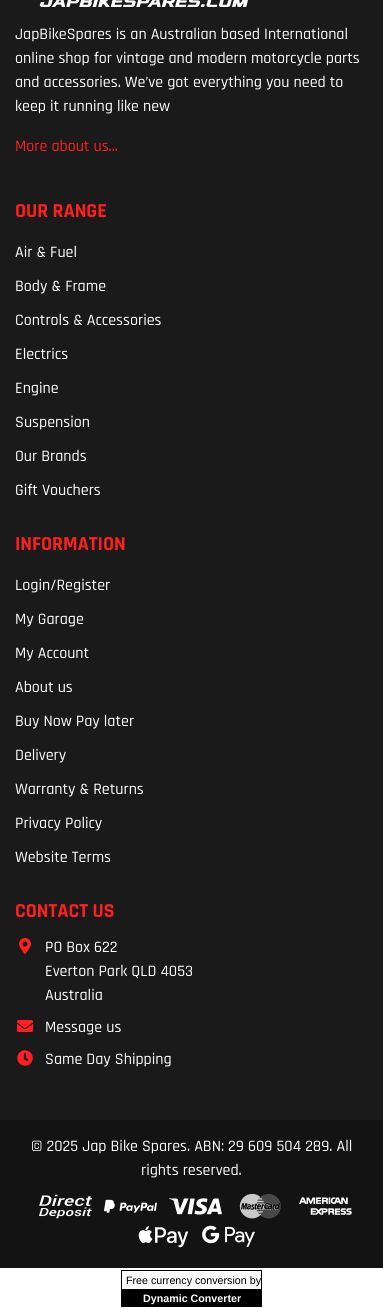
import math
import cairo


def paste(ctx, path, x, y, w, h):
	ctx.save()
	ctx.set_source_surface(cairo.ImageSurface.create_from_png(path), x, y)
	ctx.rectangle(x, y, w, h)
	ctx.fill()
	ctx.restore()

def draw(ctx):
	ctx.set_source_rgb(1, 1, 1)
	ctx.paint()
	ctx.set_source_rgb(0.102, 0.102, 0.102)
	ctx.rectangle(0, 0, 383, 1120)
	ctx.fill()
	paste(ctx, 'media/1.png', 39, 0, 209, 7)
	ctx.select_font_face('Rajdhani Medium')
	ctx.set_font_size(16)
	ctx.set_source_rgb(1, 1, 1)
	for x, y, s in [
		(15, 39, 'JapBikeSpares is an Australian based International'),
		(15, 63, 'online shop for vintage and modern motorcycle parts'),
		(15, 87, 'and accessories. We’ve got everything you need to'),
		(15, 111, 'keep it running like new'),
	]:
		ctx.move_to(x, y)
		ctx.show_text(s)
	ctx.set_source_rgb(1, 0.122, 0.122)
	ctx.move_to(15, 151)
	ctx.show_text('More about us...')
	ctx.select_font_face('Rajdhani', cairo.FONT_SLANT_NORMAL, cairo.FONT_WEIGHT_BOLD)
	ctx.set_font_size(20)
	ctx.move_to(15, 217)
	ctx.show_text('OUR RANGE')
	ctx.select_font_face('Rajdhani Medium')
	ctx.set_font_size(16)
	ctx.set_source_rgb(1, 1, 1)
	for x, y, s in [
		(15, 257, 'Air & Fuel'),
		(15, 291, 'Body & Frame'),
		(15, 325, 'Controls & Accessories'),
		(15, 359, 'Electrics'),
		(15, 393, 'Engine'),
		(15, 427, 'Suspension'),
		(15, 461, 'Our Brands'),
		(15, 495, 'Gift Vouchers'),
	]:
		ctx.move_to(x, y)
		ctx.show_text(s)
	ctx.select_font_face('Rajdhani', cairo.FONT_SLANT_NORMAL, cairo.FONT_WEIGHT_BOLD)
	ctx.set_font_size(20)
	ctx.set_source_rgb(1, 0.122, 0.122)
	ctx.move_to(15, 550)
	ctx.show_text('INFORMATION')
	ctx.select_font_face('Rajdhani Medium')
	ctx.set_font_size(16)
	ctx.set_source_rgb(1, 1, 1)
	for x, y, s in [
		(15, 590, 'Login/Register'),
		(15, 624, 'My Garage'),
		(15, 658, 'My Account'),
		(15, 692, 'About us'),
		(15, 726, 'Buy Now Pay later'),
		(15, 760, 'Delivery'),
		(15, 794, 'Warranty & Returns'),
		(15, 828, 'Privacy Policy'),
		(15, 862, 'Website Terms'),
	]:
		ctx.move_to(x, y)
		ctx.show_text(s)
	ctx.select_font_face('Rajdhani', cairo.FONT_SLANT_NORMAL, cairo.FONT_WEIGHT_BOLD)
	ctx.set_font_size(20)
	ctx.set_source_rgb(1, 0.122, 0.122)
	ctx.move_to(15, 917)
	ctx.show_text('CONTACT US')
	paste(ctx, 'media/2.png', 19, 938, 12, 16)
	ctx.select_font_face('Rajdhani Medium')
	ctx.set_font_size(16)
	ctx.set_source_rgb(1, 1, 1)
	for x, y, s in [
		(45, 952, 'PO Box 622'),
		(45, 976, 'Everton Park QLD 4053'),
		(45, 1000, 'Australia'),
	]:
		ctx.move_to(x, y)
		ctx.show_text(s)
	paste(ctx, 'media/3.png', 17, 1020, 16, 12)
	ctx.move_to(45, 1032)
	ctx.show_text('Message us')
	paste(ctx, 'media/4.png', 17, 1050, 16, 16)
	ctx.move_to(45, 1064)
	ctx.show_text('Same Day Shipping')
	ctx.set_source_rgb(0.075, 0.075, 0.075)
	ctx.rectangle(0, 1120, 383, 148)
	ctx.fill()
	ctx.set_source_rgb(1, 1, 1)
	ctx.move_to(31, 1151)
	ctx.show_text('© 2025 Jap Bike Spares. ABN: 29 609 504 289. All')
	ctx.move_to(141, 1175)
	ctx.show_text('rights reserved.')
	paste(ctx, 'media/5.png', 39, 1194, 53, 25)
	paste(ctx, 'media/6.png', 104, 1199, 53, 14)
	paste(ctx, 'media/7.png', 169, 1198, 53, 17)
	paste(ctx, 'media/8.png', 239, 1193, 42, 26)
	paste(ctx, 'media/9.png', 299, 1197, 53, 18)
	paste(ctx, 'media/10.png', 138, 1226, 51, 22)
	paste(ctx, 'media/11.png', 202, 1225, 53, 22)
	ctx.set_source_rgb(0, 0, 0)
	ctx.rectangle(122, 1289, 139, 18)
	ctx.rectangle(121, 1270, 141, 1)
	ctx.rectangle(261, 1270, 1, 37)
	ctx.rectangle(121, 1270, 1, 37)
	ctx.fill()
	ctx.select_font_face('Liberation Sans')
	ctx.set_font_size(10.7)
	ctx.move_to(126, 1284)
	ctx.show_text('Free currency conversion by')
	ctx.select_font_face('Liberation Sans', cairo.FONT_SLANT_NORMAL, cairo.FONT_WEIGHT_BOLD)
	ctx.set_source_rgb(1, 1, 1)
	ctx.move_to(143, 1302)
	ctx.show_text('Dynamic Converter')


surface = cairo.ImageSurface(cairo.FORMAT_RGB24, 383, 1309)
ctx = cairo.Context(surface)
options = cairo.FontOptions()
options.set_hint_metrics(cairo.HINT_METRICS_OFF)
options.set_hint_style(cairo.HINT_STYLE_NONE)
ctx.set_font_options(options)
ctx.set_miter_limit(4)
draw(ctx)
surface.write_to_png('image.png')
